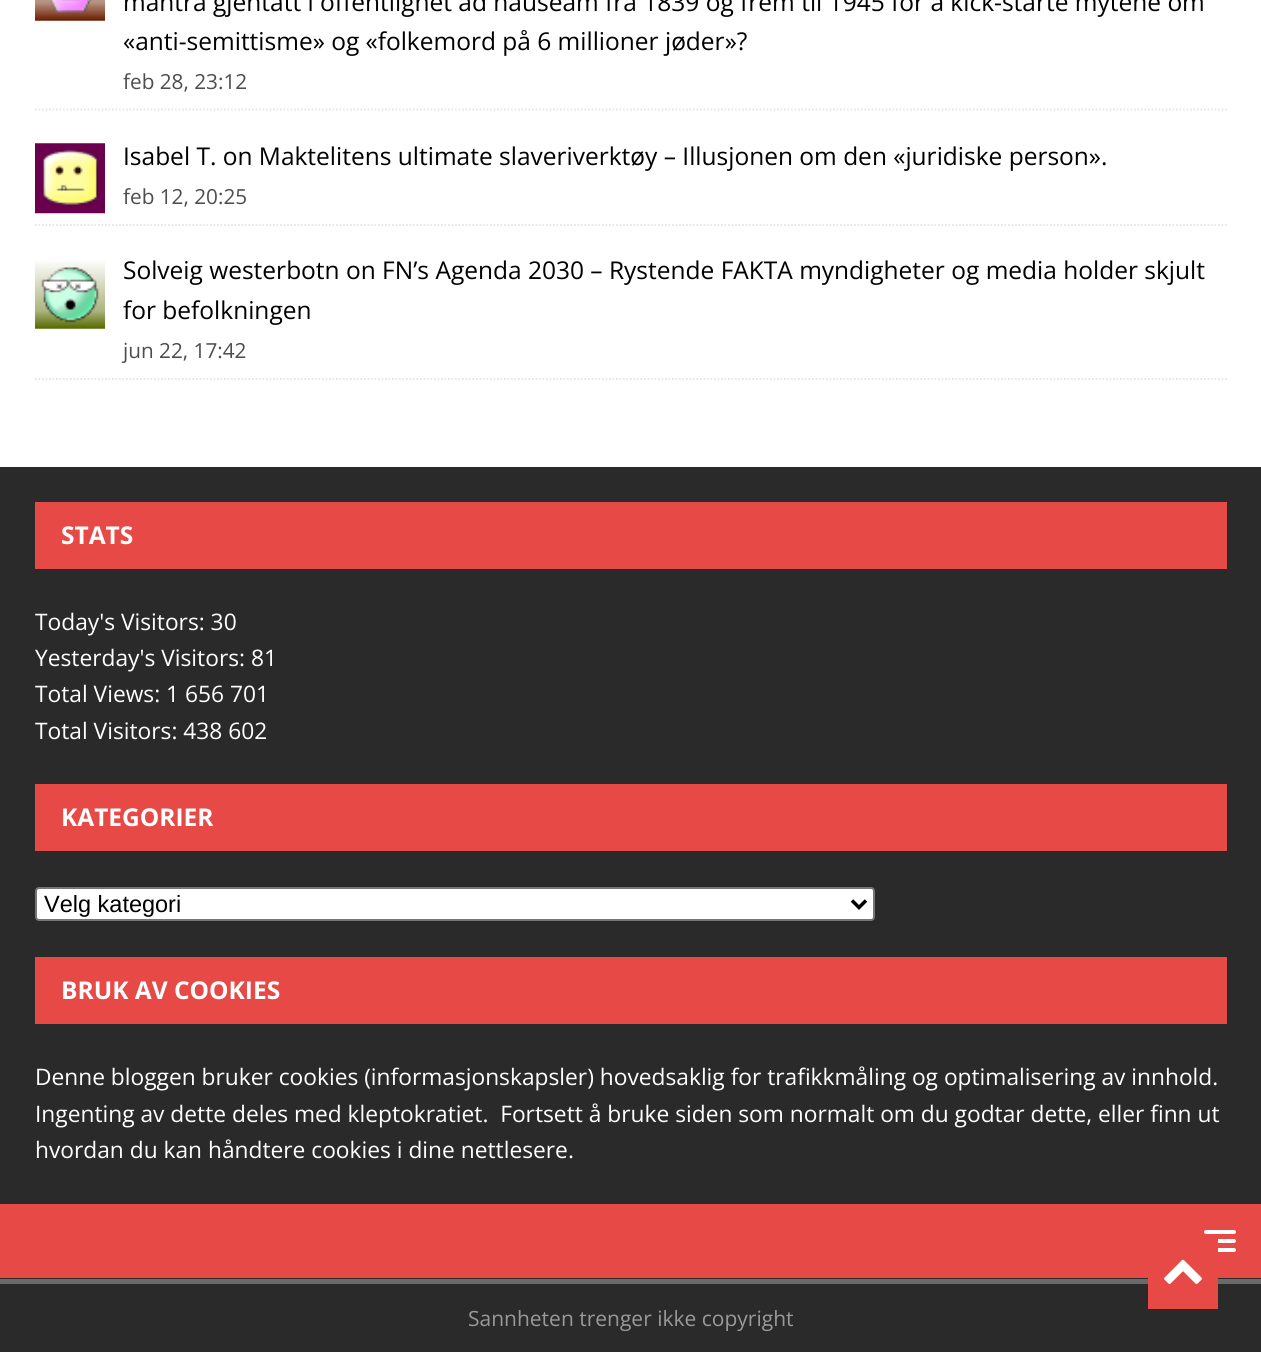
import math
import cairo


def round_path(ctx, x, y, w, h, r):
	ctx.new_sub_path()
	for i, (u, v) in enumerate([(x + w - r, y + h - r), (x + r, y + h - r), (x + r, y + r), (x + w - r, y + r)]):
		ctx.arc(u, v, r, i * math.pi / 2, (i + 1) * math.pi / 2)
	ctx.close_path()

def paste(ctx, path, x, y, w, h):
	ctx.save()
	ctx.set_source_surface(cairo.ImageSurface.create_from_png(path), x, y)
	ctx.rectangle(x, y, w, h)
	ctx.fill()
	ctx.restore()

def draw(ctx):
	ctx.set_source_rgb(0.165, 0.165, 0.165)
	ctx.paint()
	ctx.set_source_rgb(1, 1, 1)
	ctx.rectangle(0, 0, 1261, 467)
	ctx.fill()
	ctx.new_path()
	ctx.move_to(35, 109.5)
	ctx.line_to(1227, 109.5)
	ctx.set_source_rgb(0.898, 0.898, 0.898)
	ctx.set_line_width(1.8)
	ctx.set_dash([1.75, 1.75])
	ctx.stroke()
	paste(ctx, 'media/1.png', 35, 0, 70, 21)
	ctx.select_font_face('Open Sans')
	ctx.set_font_size(24.5)
	ctx.set_source_rgb(0, 0, 0)
	ctx.move_to(123, 11)
	ctx.show_text('mantra gjentatt i offentlighet ad nauseam fra 1839 og frem til 1945 for å kick-starte mytene om')
	ctx.move_to(123, 50)
	ctx.show_text('«anti-semittisme» og «folkemord på 6 millioner jøder»?')
	ctx.set_font_size(20.75)
	ctx.set_source_rgb(0.302, 0.302, 0.302)
	ctx.move_to(123, 89)
	ctx.show_text('feb 28, 23:12')
	ctx.new_path()
	ctx.move_to(35, 225)
	ctx.line_to(1227, 225)
	ctx.set_source_rgb(0.898, 0.898, 0.898)
	ctx.stroke()
	paste(ctx, 'media/2.png', 35, 143, 70, 71)
	ctx.set_font_size(24.5)
	ctx.set_source_rgb(0, 0, 0)
	ctx.move_to(123, 165)
	ctx.show_text('Isabel T. on Maktelitens ultimate slaveriverktøy – Illusjonen om den «juridiske person».')
	ctx.set_font_size(20.75)
	ctx.set_source_rgb(0.302, 0.302, 0.302)
	ctx.move_to(123, 204)
	ctx.show_text('feb 12, 20:25')
	ctx.new_path()
	ctx.move_to(35, 379)
	ctx.line_to(1227, 379)
	ctx.set_source_rgb(0.898, 0.898, 0.898)
	ctx.stroke()
	paste(ctx, 'media/3.png', 35, 261, 70, 68)
	ctx.set_font_size(24.5)
	ctx.set_source_rgb(0, 0, 0)
	ctx.move_to(123, 279)
	ctx.show_text('Solveig westerbotn on FN’s Agenda 2030 – Rystende FAKTA myndigheter og media holder skjult')
	ctx.move_to(123, 319)
	ctx.show_text('for befolkningen')
	ctx.set_font_size(20.75)
	ctx.set_source_rgb(0.302, 0.302, 0.302)
	ctx.move_to(123, 358)
	ctx.show_text('jun 22, 17:42')
	ctx.set_source_rgb(0.902, 0.286, 0.275)
	ctx.rectangle(0, 1204, 1261, 74)
	ctx.fill()
	ctx.set_source_rgb(1, 1, 1)
	round_path(ctx, 1204, 1239, 32, 4, 2)
	ctx.fill()
	round_path(ctx, 1204, 1248, 32, 4, 2)
	ctx.fill()
	ctx.set_source_rgb(0.416, 0.416, 0.416)
	ctx.rectangle(0, 1279, 1261, 5)
	ctx.fill()
	ctx.set_source_rgb(0.902, 0.286, 0.275)
	ctx.rectangle(1148, 1239, 70, 70)
	ctx.fill()
	paste(ctx, 'media/4.png', 1164, 1259, 38, 25)
	ctx.rectangle(35, 502, 1192, 67)
	ctx.fill()
	ctx.select_font_face('Open Sans', cairo.FONT_SLANT_NORMAL, cairo.FONT_WEIGHT_BOLD)
	ctx.set_font_size(24.5)
	ctx.set_source_rgb(1, 1, 1)
	ctx.move_to(61, 544)
	ctx.show_text('STATS')
	ctx.select_font_face('Open Sans')
	ctx.set_font_size(22.75)
	for x, y, s in [
		(35, 630, 'Today\'s Visitors: 30'),
		(35, 666, 'Yesterday\'s Visitors: 81'),
		(35, 702, 'Total Views: 1 656 701'),
		(35, 739, 'Total Visitors: 438 602'),
	]:
		ctx.move_to(x, y)
		ctx.show_text(s)
	ctx.set_source_rgb(0.902, 0.286, 0.275)
	ctx.rectangle(35, 784, 1192, 67)
	ctx.fill()
	ctx.select_font_face('Open Sans', cairo.FONT_SLANT_NORMAL, cairo.FONT_WEIGHT_BOLD)
	ctx.set_font_size(24.5)
	ctx.set_source_rgb(1, 1, 1)
	ctx.move_to(61, 826)
	ctx.show_text('KATEGORIER')
	round_path(ctx, 36, 888, 838, 32, 3)
	ctx.fill_preserve()
	ctx.set_source_rgb(0.463, 0.463, 0.463)
	ctx.set_line_width(2)
	ctx.set_dash([])
	ctx.stroke()
	ctx.new_path()
	ctx.move_to(852, 900.5)
	ctx.line_to(859, 907.5)
	ctx.line_to(866, 900.5)
	ctx.set_source_rgb(0, 0, 0)
	ctx.set_line_width(3.5)
	ctx.stroke()
	ctx.select_font_face('Liberation Sans')
	ctx.set_font_size(23.5)
	ctx.move_to(44, 912)
	ctx.show_text('Velg kategori')
	ctx.set_source_rgb(0.902, 0.286, 0.275)
	ctx.rectangle(35, 957, 1192, 67)
	ctx.fill()
	ctx.select_font_face('Open Sans', cairo.FONT_SLANT_NORMAL, cairo.FONT_WEIGHT_BOLD)
	ctx.set_font_size(24.5)
	ctx.set_source_rgb(1, 1, 1)
	ctx.move_to(61, 999)
	ctx.show_text('BRUK AV COOKIES')
	ctx.select_font_face('Open Sans')
	ctx.set_font_size(22.75)
	for x, y, s in [
		(35, 1085, 'Denne bloggen bruker cookies (informasjonskapsler) hovedsaklig for trafikkmåling og optimalisering av innhold.'),
		(35, 1122, 'Ingenting av dette deles med kleptokratiet.  Fortsett å bruke siden som normalt om du godtar dette, eller finn ut'),
		(35, 1158, 'hvordan du kan håndtere cookies i dine nettlesere.'),
	]:
		ctx.move_to(x, y)
		ctx.show_text(s)
	round_path(ctx, 1204, 1230, 32, 4, 2)
	ctx.fill()
	ctx.set_font_size(21)
	ctx.set_source_rgb(0.6, 0.6, 0.6)
	ctx.move_to(468, 1326)
	ctx.show_text('Sannheten trenger ikke copyright')


surface = cairo.ImageSurface(cairo.FORMAT_RGB24, 1261, 1352)
ctx = cairo.Context(surface)
options = cairo.FontOptions()
options.set_hint_metrics(cairo.HINT_METRICS_OFF)
options.set_hint_style(cairo.HINT_STYLE_NONE)
ctx.set_font_options(options)
ctx.set_miter_limit(4)
draw(ctx)
surface.write_to_png('image.png')
